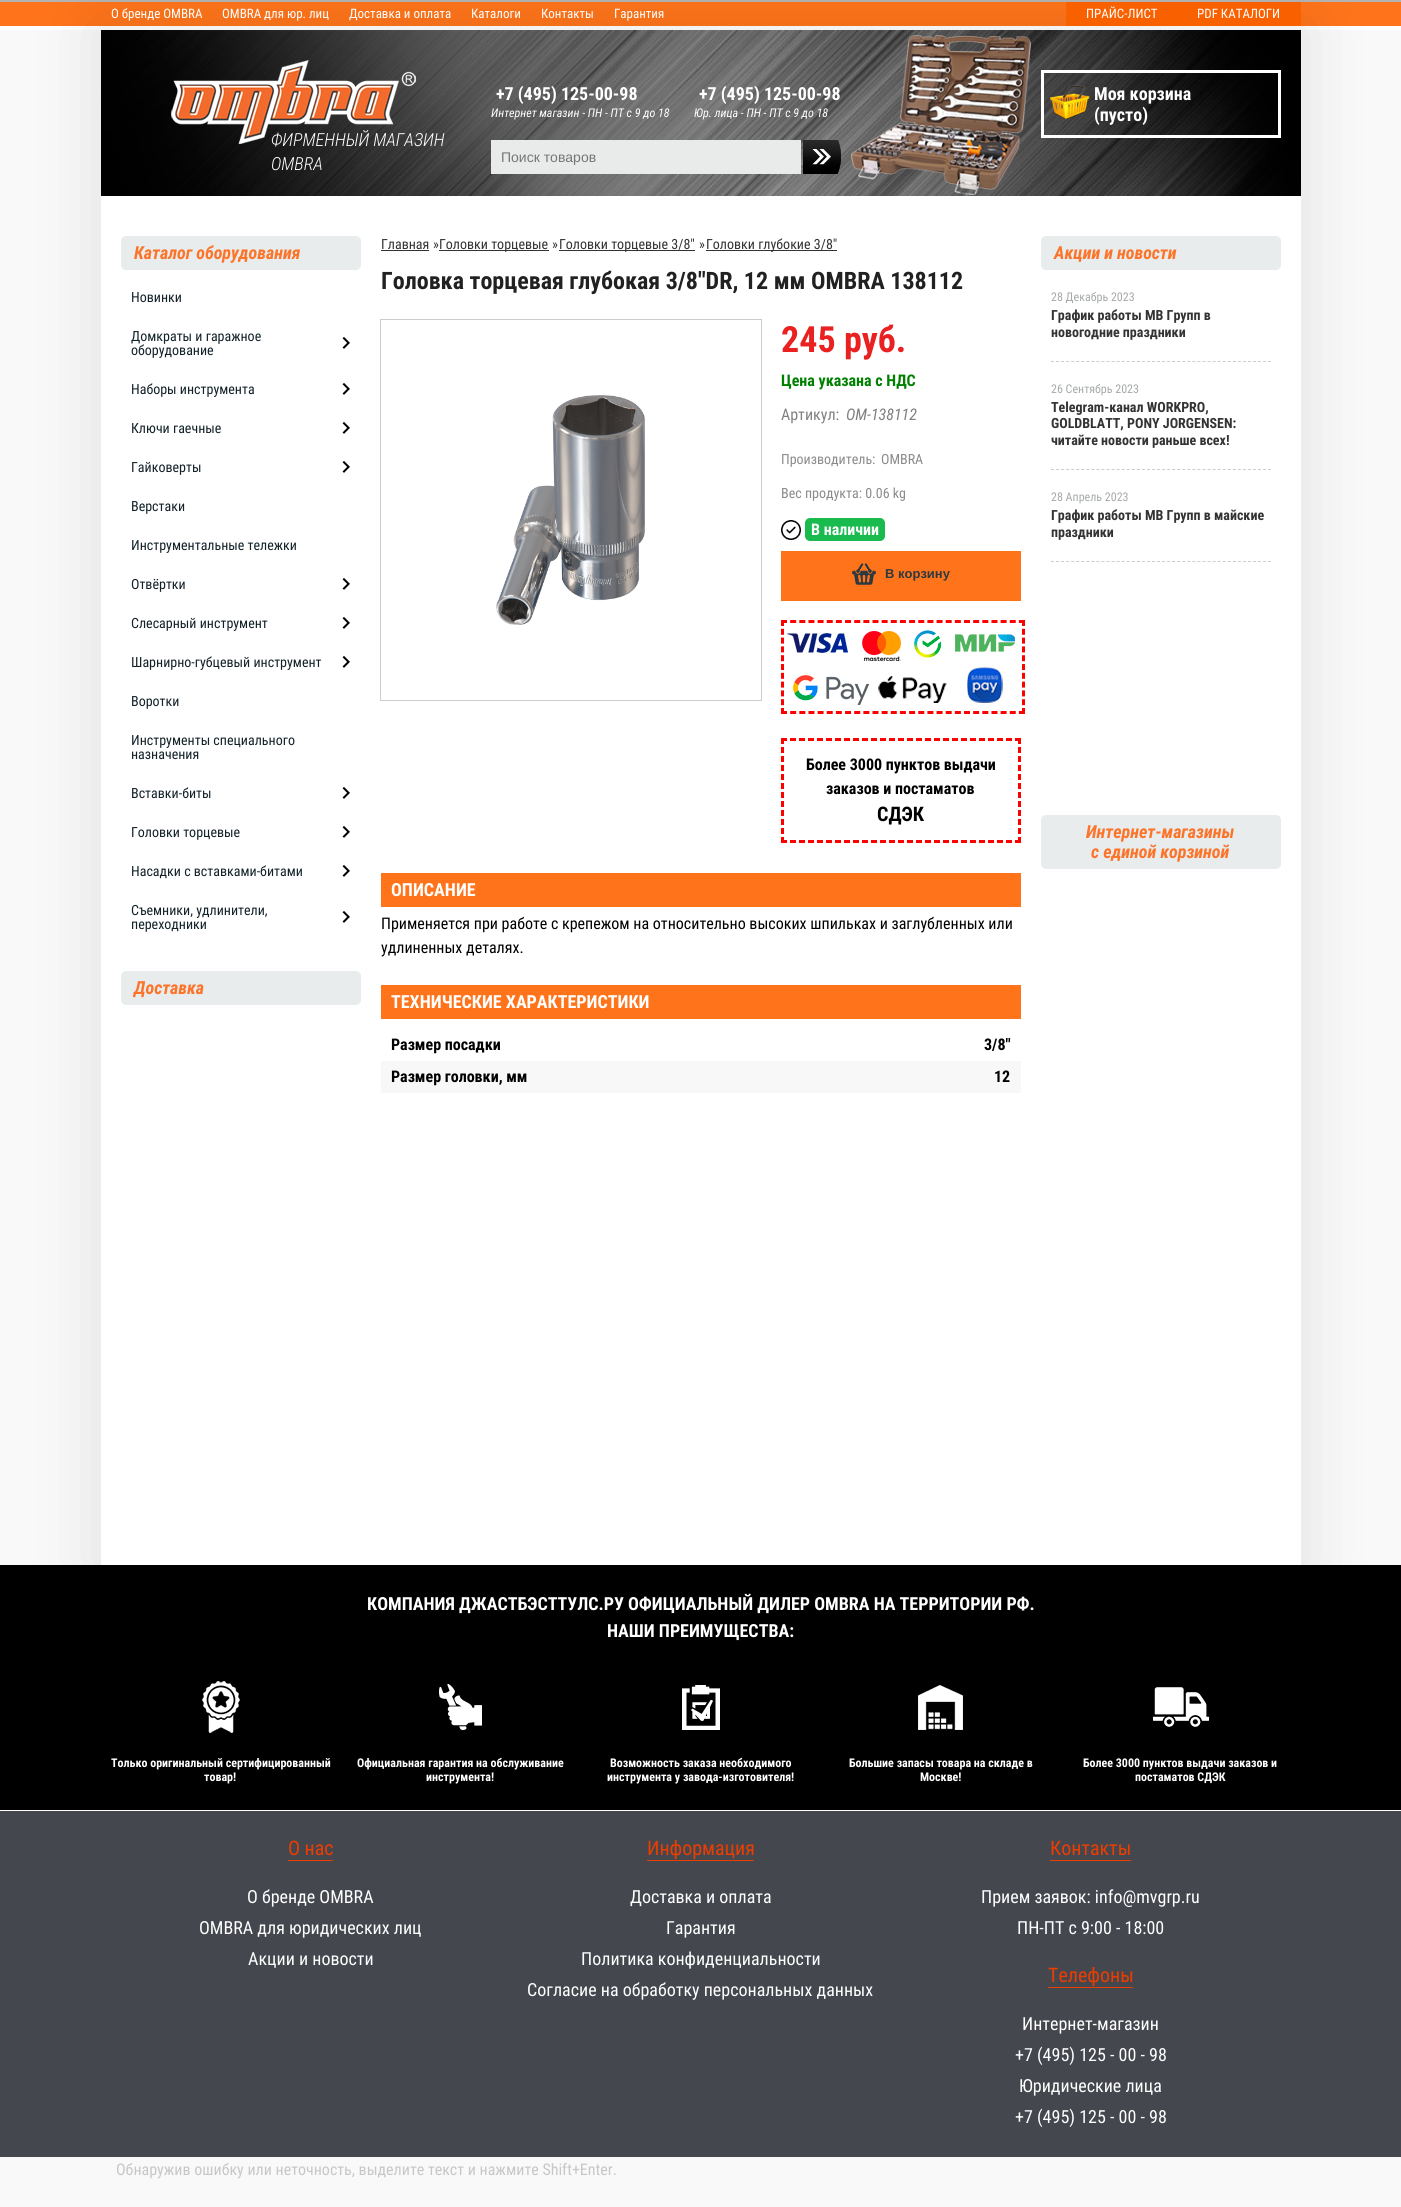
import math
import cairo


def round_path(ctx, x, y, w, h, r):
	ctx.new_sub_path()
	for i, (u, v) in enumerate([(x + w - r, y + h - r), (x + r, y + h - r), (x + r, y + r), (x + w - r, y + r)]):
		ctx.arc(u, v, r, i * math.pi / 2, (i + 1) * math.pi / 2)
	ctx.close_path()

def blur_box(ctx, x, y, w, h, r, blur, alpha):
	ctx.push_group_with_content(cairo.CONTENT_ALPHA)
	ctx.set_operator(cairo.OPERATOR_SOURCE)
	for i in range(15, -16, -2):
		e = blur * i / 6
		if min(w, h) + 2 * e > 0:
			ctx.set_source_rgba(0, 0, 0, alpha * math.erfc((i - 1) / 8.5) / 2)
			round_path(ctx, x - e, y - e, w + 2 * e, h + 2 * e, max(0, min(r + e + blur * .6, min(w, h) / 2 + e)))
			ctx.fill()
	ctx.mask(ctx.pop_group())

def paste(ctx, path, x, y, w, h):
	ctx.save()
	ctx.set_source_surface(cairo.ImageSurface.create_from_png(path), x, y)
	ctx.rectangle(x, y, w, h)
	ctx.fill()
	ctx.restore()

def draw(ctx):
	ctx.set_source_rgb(0.973, 0.973, 0.973)
	ctx.paint()
	ctx.set_source_rgb(1, 0.455, 0.102)
	ctx.rectangle(0, 2, 1401, 24)
	ctx.fill()
	ctx.set_source_rgb(0.702, 0.702, 0.702)
	ctx.rectangle(0, 0, 1401, 2)
	ctx.fill()
	ctx.set_source_rgb(1, 1, 1)
	ctx.rectangle(0, 26, 1401, 4)
	ctx.fill()
	ctx.set_source_rgb(0, 0, 0)
	blur_box(ctx, 96, 25, 1210, 1545, 0, 32, 0.1)
	ctx.select_font_face('Roboto Condensed')
	ctx.set_font_size(13)
	ctx.set_source_rgb(1, 1, 1)
	for x, y, s in [
		(111, 18, 'О бренде OMBRA'),
		(222, 18, 'OMBRA для юр. лиц'),
		(349, 18, 'Доставка и оплата'),
		(471, 18, 'Каталоги'),
		(541, 18, 'Контакты'),
		(614, 18, 'Гарантия'),
	]:
		ctx.move_to(x, y)
		ctx.show_text(s)
	ctx.set_source_rgb(0.973, 0.38, 0)
	ctx.rectangle(1066, 2, 235, 24)
	ctx.fill()
	ctx.set_source_rgb(1, 1, 1)
	ctx.move_to(1086, 18)
	ctx.show_text('ПРАЙС-ЛИСТ')
	ctx.move_to(1197, 18)
	ctx.show_text('PDF КАТАЛОГИ')
	ctx.rectangle(101, 196, 1200, 1369)
	ctx.fill()
	paste(ctx, 'media/1.png', 101, 30, 1200, 166)
	paste(ctx, 'media/2.png', 851, 35, 180, 160)
	ctx.select_font_face('Roboto Condensed', cairo.FONT_SLANT_NORMAL, cairo.FONT_WEIGHT_BOLD)
	ctx.set_font_size(18)
	ctx.move_to(496, 100)
	ctx.show_text('+7 (495) 125-00-98')
	ctx.select_font_face('Roboto Condensed', cairo.FONT_SLANT_ITALIC)
	ctx.set_font_size(12)
	ctx.move_to(491, 117)
	ctx.show_text('Интернет магазин - ПН - ПТ с 9 до 18')
	ctx.select_font_face('Roboto Condensed', cairo.FONT_SLANT_NORMAL, cairo.FONT_WEIGHT_BOLD)
	ctx.set_font_size(18)
	ctx.move_to(699, 100)
	ctx.show_text('+7 (495) 125-00-98')
	ctx.select_font_face('Roboto Condensed', cairo.FONT_SLANT_ITALIC)
	ctx.set_font_size(12)
	ctx.move_to(694, 117)
	ctx.show_text('Юр. лица - ПН - ПТ с 9 до 18')
	ctx.set_source_rgb(0.914, 0.918, 0.918)
	ctx.rectangle(491, 140, 310, 34)
	ctx.fill()
	ctx.select_font_face('Liberation Sans')
	ctx.set_font_size(14)
	ctx.set_source_rgb(0.459, 0.459, 0.459)
	ctx.move_to(501, 162)
	ctx.show_text('Поиск товаров')
	paste(ctx, 'media/3.png', 803, 140, 38, 34)
	paste(ctx, 'media/4.png', 1050, 85, 40, 34)
	ctx.rectangle(1042.5, 71.5, 237, 65)
	ctx.set_source_rgb(1, 1, 1)
	ctx.set_line_width(3)
	ctx.stroke()
	ctx.select_font_face('Roboto Condensed', cairo.FONT_SLANT_NORMAL, cairo.FONT_WEIGHT_BOLD)
	ctx.set_font_size(18)
	ctx.move_to(1094, 100)
	ctx.show_text('Моя корзина')
	ctx.move_to(1094, 121)
	ctx.show_text('(пусто)')
	paste(ctx, 'media/5.png', 171, 60, 245, 84)
	ctx.select_font_face('Roboto Condensed Light', cairo.FONT_SLANT_ITALIC)
	ctx.move_to(271, 146)
	ctx.show_text('ФИРМЕННЫЙ МАГАЗИН')
	ctx.move_to(271, 170)
	ctx.show_text('OMBRA')
	ctx.set_source_rgb(0.914, 0.922, 0.922)
	round_path(ctx, 121, 236, 240, 34, 5)
	ctx.fill()
	ctx.select_font_face('Roboto Condensed', cairo.FONT_SLANT_ITALIC, cairo.FONT_WEIGHT_BOLD)
	ctx.set_source_rgb(0.988, 0.455, 0.165)
	ctx.move_to(134, 259)
	ctx.show_text('Каталог оборудования')
	ctx.select_font_face('Roboto Condensed')
	ctx.set_font_size(14)
	ctx.set_source_rgb(0.075, 0.133, 0.161)
	for x, y, s in [
		(131, 302, 'Новинки'),
		(131, 341, 'Домкраты и гаражное'),
		(131, 355, 'оборудование'),
	]:
		ctx.move_to(x, y)
		ctx.show_text(s)
	paste(ctx, 'media/6.png', 342, 337, 8, 12)
	ctx.move_to(131, 394)
	ctx.show_text('Наборы инструмента')
	paste(ctx, 'media/6.png', 342, 383, 8, 12)
	ctx.move_to(131, 433)
	ctx.show_text('Ключи гаечные')
	paste(ctx, 'media/6.png', 342, 422, 8, 12)
	ctx.move_to(131, 472)
	ctx.show_text('Гайковерты')
	paste(ctx, 'media/6.png', 342, 461, 8, 12)
	for x, y, s in [
		(131, 511, 'Верстаки'),
		(131, 550, 'Инструментальные тележки'),
		(131, 589, 'Отвёртки'),
	]:
		ctx.move_to(x, y)
		ctx.show_text(s)
	paste(ctx, 'media/6.png', 342, 578, 8, 12)
	ctx.move_to(131, 628)
	ctx.show_text('Слесарный инструмент')
	paste(ctx, 'media/6.png', 342, 617, 8, 12)
	ctx.move_to(131, 667)
	ctx.show_text('Шарнирно-губцевый инструмент')
	paste(ctx, 'media/6.png', 342, 656, 8, 12)
	for x, y, s in [
		(131, 706, 'Воротки'),
		(131, 745, 'Инструменты специального'),
		(131, 759, 'назначения'),
		(131, 798, 'Вставки-биты'),
	]:
		ctx.move_to(x, y)
		ctx.show_text(s)
	paste(ctx, 'media/6.png', 342, 787, 8, 12)
	ctx.move_to(131, 837)
	ctx.show_text('Головки торцевые')
	paste(ctx, 'media/6.png', 342, 826, 8, 12)
	ctx.move_to(131, 876)
	ctx.show_text('Насадки с вставками-битами')
	paste(ctx, 'media/6.png', 342, 865, 8, 12)
	ctx.move_to(131, 915)
	ctx.show_text('Съемники, удлинители,')
	ctx.move_to(131, 929)
	ctx.show_text('переходники')
	paste(ctx, 'media/6.png', 342, 911, 8, 12)
	ctx.set_source_rgb(0.914, 0.922, 0.922)
	round_path(ctx, 121, 971, 240, 34, 5)
	ctx.fill()
	ctx.select_font_face('Roboto Condensed', cairo.FONT_SLANT_ITALIC, cairo.FONT_WEIGHT_BOLD)
	ctx.set_font_size(18)
	ctx.set_source_rgb(0.988, 0.455, 0.165)
	ctx.move_to(134, 994)
	ctx.show_text('Доставка')
	ctx.select_font_face('Roboto Condensed')
	ctx.set_font_size(14)
	ctx.set_source_rgb(0.2, 0.2, 0.2)
	ctx.move_to(381, 249)
	ctx.show_text('Главная')
	ctx.rectangle(381, 250, 48, 1)
	ctx.fill()
	ctx.move_to(433, 249)
	ctx.show_text('»')
	ctx.rectangle(439, 250, 110, 1)
	ctx.fill()
	ctx.move_to(439, 249)
	ctx.show_text('Головки торцевые')
	ctx.move_to(552, 249)
	ctx.show_text('»')
	ctx.rectangle(559, 250, 136, 1)
	ctx.fill()
	ctx.move_to(559, 249)
	ctx.show_text('Головки торцевые 3/8"')
	ctx.move_to(699, 249)
	ctx.show_text('»')
	ctx.rectangle(706, 250, 131, 1)
	ctx.fill()
	ctx.move_to(706, 249)
	ctx.show_text('Головки глубокие 3/8"')
	ctx.select_font_face('Roboto Condensed', cairo.FONT_SLANT_NORMAL, cairo.FONT_WEIGHT_BOLD)
	ctx.set_font_size(24)
	ctx.set_source_rgb(0.129, 0.129, 0.129)
	ctx.move_to(381, 289)
	ctx.show_text('Головка торцевая глубокая 3/8"DR, 12 мм OMBRA 138112')
	ctx.rectangle(380.5, 319.5, 381, 381)
	ctx.set_source_rgb(0.8, 0.8, 0.8)
	ctx.set_line_width(1)
	ctx.stroke()
	paste(ctx, 'media/7.png', 496, 395, 149, 230)
	ctx.set_font_size(36)
	ctx.set_source_rgb(0.914, 0.129, 0.129)
	ctx.move_to(781, 352)
	ctx.show_text('245 руб.')
	ctx.set_font_size(16)
	ctx.set_source_rgb(0, 0.502, 0)
	ctx.move_to(781, 386)
	ctx.show_text('Цена указана с НДС')
	ctx.select_font_face('Roboto Condensed')
	ctx.set_source_rgb(0.502, 0.502, 0.502)
	ctx.move_to(781, 420)
	ctx.show_text('Артикул:')
	ctx.select_font_face('Roboto Condensed', cairo.FONT_SLANT_ITALIC)
	ctx.move_to(846, 420)
	ctx.show_text('OM-138112')
	ctx.select_font_face('Roboto Condensed')
	ctx.set_font_size(14)
	ctx.set_source_rgb(0.545, 0.545, 0.545)
	for x, y, s in [
		(781, 464, 'Производитель:'),
		(881, 464, 'OMBRA'),
		(781, 498, 'Вес продукта: 0.06 kg'),
	]:
		ctx.move_to(x, y)
		ctx.show_text(s)
	paste(ctx, 'media/8.png', 781, 520, 20, 20)
	ctx.set_source_rgb(0.098, 0.733, 0.31)
	round_path(ctx, 805, 518, 80, 23, 5)
	ctx.fill()
	ctx.select_font_face('Roboto Condensed', cairo.FONT_SLANT_NORMAL, cairo.FONT_WEIGHT_BOLD)
	ctx.set_font_size(16)
	ctx.set_source_rgb(1, 1, 1)
	ctx.move_to(811, 535)
	ctx.show_text('В наличии')
	ctx.set_source_rgb(1, 0.455, 0.102)
	ctx.rectangle(781, 551, 240, 50)
	ctx.fill()
	paste(ctx, 'media/9.png', 852, 563, 24, 22)
	ctx.select_font_face('Liberation Sans', cairo.FONT_SLANT_NORMAL, cairo.FONT_WEIGHT_BOLD)
	ctx.set_font_size(13)
	ctx.set_source_rgb(0.176, 0.22, 0.247)
	ctx.move_to(885, 578)
	ctx.show_text('В корзину')
	ctx.new_path()
	ctx.move_to(781, 621.5)
	ctx.line_to(1025, 621.5)
	ctx.set_source_rgb(1, 0, 0)
	ctx.set_line_width(3)
	ctx.set_dash([6, 3.15])
	ctx.stroke()
	ctx.new_path()
	ctx.move_to(1023.5, 620)
	ctx.line_to(1023.5, 714)
	ctx.set_dash([6, 2.8])
	ctx.stroke()
	ctx.new_path()
	ctx.move_to(781, 712.5)
	ctx.line_to(1025, 712.5)
	ctx.set_dash([6, 3.15])
	ctx.stroke()
	ctx.new_path()
	ctx.move_to(782.5, 620)
	ctx.line_to(782.5, 714)
	ctx.set_dash([6, 2.8])
	ctx.stroke()
	paste(ctx, 'media/10.png', 785, 630, 230, 75)
	ctx.new_path()
	ctx.move_to(781, 739.5)
	ctx.line_to(1021, 739.5)
	ctx.set_dash([6, 3])
	ctx.stroke()
	ctx.new_path()
	ctx.move_to(1019.5, 738)
	ctx.line_to(1019.5, 843)
	ctx.stroke()
	ctx.new_path()
	ctx.move_to(781, 841.5)
	ctx.line_to(1021, 841.5)
	ctx.stroke()
	ctx.new_path()
	ctx.move_to(782.5, 738)
	ctx.line_to(782.5, 843)
	ctx.stroke()
	ctx.select_font_face('Roboto Condensed', cairo.FONT_SLANT_NORMAL, cairo.FONT_WEIGHT_BOLD)
	ctx.set_font_size(16)
	ctx.set_source_rgb(0, 0, 0)
	ctx.move_to(806, 770)
	ctx.show_text('Более 3000 пунктов выдачи')
	ctx.move_to(826, 794)
	ctx.show_text('заказов и постаматов')
	ctx.set_font_size(20)
	ctx.move_to(877, 821)
	ctx.show_text('СДЭК')
	ctx.set_source_rgb(1, 0.455, 0.102)
	ctx.rectangle(381, 873, 640, 34)
	ctx.fill()
	ctx.set_font_size(18)
	ctx.set_source_rgb(1, 1, 1)
	ctx.move_to(391, 896)
	ctx.show_text('ОПИСАНИЕ')
	ctx.select_font_face('Roboto Condensed')
	ctx.set_font_size(16)
	ctx.set_source_rgb(0, 0, 0)
	ctx.move_to(381, 929)
	ctx.show_text('Применяется при работе с крепежом на относительно высоких шпильках и заглубленных или')
	ctx.move_to(381, 953)
	ctx.show_text('удлиненных деталях.')
	ctx.set_source_rgb(1, 0.455, 0.102)
	ctx.rectangle(381, 985, 640, 34)
	ctx.fill()
	ctx.select_font_face('Roboto Condensed', cairo.FONT_SLANT_NORMAL, cairo.FONT_WEIGHT_BOLD)
	ctx.set_font_size(18)
	ctx.set_source_rgb(1, 1, 1)
	ctx.move_to(391, 1008)
	ctx.show_text('ТЕХНИЧЕСКИЕ ХАРАКТЕРИСТИКИ')
	ctx.set_font_size(16)
	ctx.set_source_rgb(0, 0, 0)
	ctx.move_to(391, 1050)
	ctx.show_text('Размер посадки')
	ctx.move_to(984, 1050)
	ctx.show_text('3/8"')
	ctx.set_source_rgb(0.969, 0.969, 0.969)
	ctx.rectangle(381, 1061, 640, 32)
	ctx.fill()
	ctx.set_source_rgb(0, 0, 0)
	ctx.move_to(391, 1082)
	ctx.show_text('Размер головки, мм')
	ctx.move_to(994, 1082)
	ctx.show_text('12')
	ctx.set_source_rgb(0.914, 0.922, 0.922)
	round_path(ctx, 1041, 236, 240, 34, 5)
	ctx.fill()
	ctx.select_font_face('Roboto Condensed', cairo.FONT_SLANT_ITALIC, cairo.FONT_WEIGHT_BOLD)
	ctx.set_font_size(18)
	ctx.set_source_rgb(0.988, 0.455, 0.165)
	ctx.move_to(1054, 259)
	ctx.show_text('Акции и новости')
	ctx.new_path()
	ctx.move_to(1051, 361.5)
	ctx.line_to(1271, 361.5)
	ctx.set_source_rgb(0.8, 0.8, 0.8)
	ctx.set_line_width(1)
	ctx.set_dash([3, 2.05])
	ctx.stroke()
	ctx.select_font_face('Roboto Condensed')
	ctx.set_font_size(12)
	ctx.set_source_rgb(0.651, 0.663, 0.667)
	ctx.move_to(1051, 301)
	ctx.show_text('28 Декабрь 2023')
	ctx.select_font_face('Roboto Condensed', cairo.FONT_SLANT_NORMAL, cairo.FONT_WEIGHT_BOLD)
	ctx.set_font_size(14)
	ctx.set_source_rgb(0.2, 0.2, 0.2)
	ctx.move_to(1051, 320)
	ctx.show_text('График работы МВ Групп в')
	ctx.move_to(1051, 337)
	ctx.show_text('новогодние праздники')
	ctx.new_path()
	ctx.move_to(1051, 469.5)
	ctx.line_to(1271, 469.5)
	ctx.set_source_rgb(0.8, 0.8, 0.8)
	ctx.stroke()
	ctx.select_font_face('Roboto Condensed')
	ctx.set_font_size(12)
	ctx.set_source_rgb(0.651, 0.663, 0.667)
	ctx.move_to(1051, 393)
	ctx.show_text('26 Сентябрь 2023')
	ctx.select_font_face('Roboto Condensed', cairo.FONT_SLANT_NORMAL, cairo.FONT_WEIGHT_BOLD)
	ctx.set_font_size(14)
	ctx.set_source_rgb(0.2, 0.2, 0.2)
	for x, y, s in [
		(1051, 412, 'Telegram-канал WORKPRO,'),
		(1051, 428, 'GOLDBLATT, PONY JORGENSEN:'),
		(1051, 445, 'читайте новости раньше всех!'),
	]:
		ctx.move_to(x, y)
		ctx.show_text(s)
	ctx.new_path()
	ctx.move_to(1051, 561.5)
	ctx.line_to(1271, 561.5)
	ctx.set_source_rgb(0.8, 0.8, 0.8)
	ctx.stroke()
	ctx.select_font_face('Roboto Condensed')
	ctx.set_font_size(12)
	ctx.set_source_rgb(0.651, 0.663, 0.667)
	ctx.move_to(1051, 501)
	ctx.show_text('28 Апрель 2023')
	ctx.select_font_face('Roboto Condensed', cairo.FONT_SLANT_NORMAL, cairo.FONT_WEIGHT_BOLD)
	ctx.set_font_size(14)
	ctx.set_source_rgb(0.2, 0.2, 0.2)
	ctx.move_to(1051, 520)
	ctx.show_text('График работы МВ Групп в майские')
	ctx.move_to(1051, 537)
	ctx.show_text('праздники')
	ctx.set_source_rgb(0.914, 0.922, 0.922)
	round_path(ctx, 1041, 815, 240, 54, 5)
	ctx.fill()
	ctx.select_font_face('Roboto Condensed', cairo.FONT_SLANT_ITALIC, cairo.FONT_WEIGHT_BOLD)
	ctx.set_font_size(18)
	ctx.set_source_rgb(0.988, 0.455, 0.165)
	ctx.move_to(1086, 838)
	ctx.show_text('Интернет-магазины')
	ctx.move_to(1091, 858)
	ctx.show_text('с единой корзиной')
	ctx.set_source_rgb(0, 0, 0)
	ctx.rectangle(0, 1565, 1401, 245)
	ctx.fill()
	ctx.set_source_rgb(1, 1, 1)
	ctx.rectangle(0, 1810, 1401, 1)
	ctx.fill()
	ctx.select_font_face('Roboto Condensed', cairo.FONT_SLANT_NORMAL, cairo.FONT_WEIGHT_BOLD)
	ctx.move_to(367, 1610)
	ctx.show_text('КОМПАНИЯ ДЖАСТБЭСТТУЛС.РУ ОФИЦИАЛЬНЫЙ ДИЛЕР OMBRA НА ТЕРРИТОРИИ РФ.')
	ctx.move_to(607, 1637)
	ctx.show_text('НАШИ ПРЕИМУЩЕСТВА:')
	paste(ctx, 'media/11.png', 202, 1681, 38, 52)
	ctx.set_font_size(12)
	ctx.move_to(111, 1767)
	ctx.show_text('Только оригинальный сертифицированный')
	ctx.move_to(204, 1781)
	ctx.show_text('товар!')
	paste(ctx, 'media/12.png', 439, 1684, 43, 46)
	ctx.move_to(357, 1767)
	ctx.show_text('Официальная гарантия на обслуживание')
	ctx.move_to(426, 1781)
	ctx.show_text('инструмента!')
	paste(ctx, 'media/13.png', 682, 1685, 38, 45)
	ctx.move_to(610, 1767)
	ctx.show_text('Возможность заказа необходимого')
	ctx.move_to(607, 1781)
	ctx.show_text('инструмента у завода-изготовителя!')
	paste(ctx, 'media/14.png', 918, 1685, 45, 45)
	ctx.move_to(849, 1767)
	ctx.show_text('Большие запасы товара на складе в')
	ctx.move_to(920, 1781)
	ctx.show_text('Москве!')
	paste(ctx, 'media/15.png', 1153, 1687, 56, 40)
	ctx.move_to(1083, 1767)
	ctx.show_text('Более 3000 пунктов выдачи заказов и')
	ctx.move_to(1135, 1781)
	ctx.show_text('постаматов СДЭК')
	ctx.set_source_rgb(0.267, 0.278, 0.306)
	ctx.rectangle(0, 1811, 1401, 346)
	ctx.fill()
	ctx.set_source_rgb(0.922, 0.239, 0)
	ctx.rectangle(288, 1860, 45, 1)
	ctx.fill()
	ctx.select_font_face('Roboto Condensed')
	ctx.set_font_size(20)
	ctx.move_to(288, 1855)
	ctx.show_text('О нас')
	ctx.set_font_size(18)
	ctx.set_source_rgb(1, 1, 1)
	for x, y, s in [
		(247, 1903, 'О бренде OMBRA'),
		(199, 1934, 'OMBRA для юридических лиц'),
		(248, 1965, 'Акции и новости'),
	]:
		ctx.move_to(x, y)
		ctx.show_text(s)
	ctx.set_source_rgb(0.922, 0.239, 0)
	ctx.rectangle(647, 1860, 107, 1)
	ctx.fill()
	ctx.set_font_size(20)
	ctx.move_to(647, 1855)
	ctx.show_text('Информация')
	ctx.set_font_size(18)
	ctx.set_source_rgb(1, 1, 1)
	for x, y, s in [
		(630, 1903, 'Доставка и оплата'),
		(666, 1934, 'Гарантия'),
		(581, 1965, 'Политика конфиденциальности'),
		(527, 1996, 'Согласие на обработку персональных данных'),
	]:
		ctx.move_to(x, y)
		ctx.show_text(s)
	ctx.set_source_rgb(0.922, 0.239, 0)
	ctx.rectangle(1050, 1860, 81, 1)
	ctx.fill()
	ctx.set_font_size(20)
	ctx.move_to(1050, 1855)
	ctx.show_text('Контакты')
	ctx.set_font_size(18)
	ctx.set_source_rgb(1, 1, 1)
	ctx.move_to(981, 1903)
	ctx.show_text('Прием заявок: info@mvgrp.ru')
	ctx.move_to(1017, 1934)
	ctx.show_text('ПН-ПТ с 9:00 - 18:00')
	ctx.set_source_rgb(0.922, 0.239, 0)
	ctx.rectangle(1048, 1987, 85, 1)
	ctx.fill()
	ctx.set_font_size(20)
	ctx.move_to(1048, 1982)
	ctx.show_text('Телефоны')
	ctx.set_font_size(18)
	ctx.set_source_rgb(1, 1, 1)
	for x, y, s in [
		(1022, 2030, 'Интернет-магазин'),
		(1015, 2061, '+7 (495) 125 - 00 - 98'),
		(1019, 2092, 'Юридические лица'),
		(1015, 2123, '+7 (495) 125 - 00 - 98'),
	]:
		ctx.move_to(x, y)
		ctx.show_text(s)
	ctx.set_font_size(16)
	ctx.set_source_rgb(0.78, 0.78, 0.78)
	ctx.move_to(116, 2175)
	ctx.show_text('Обнаружив ошибку или неточность, выделите текст и нажмите Shift+Enter.')


surface = cairo.ImageSurface(cairo.FORMAT_RGB24, 1401, 2207)
ctx = cairo.Context(surface)
options = cairo.FontOptions()
options.set_hint_metrics(cairo.HINT_METRICS_OFF)
options.set_hint_style(cairo.HINT_STYLE_NONE)
ctx.set_font_options(options)
ctx.set_miter_limit(4)
draw(ctx)
surface.write_to_png('image.png')
